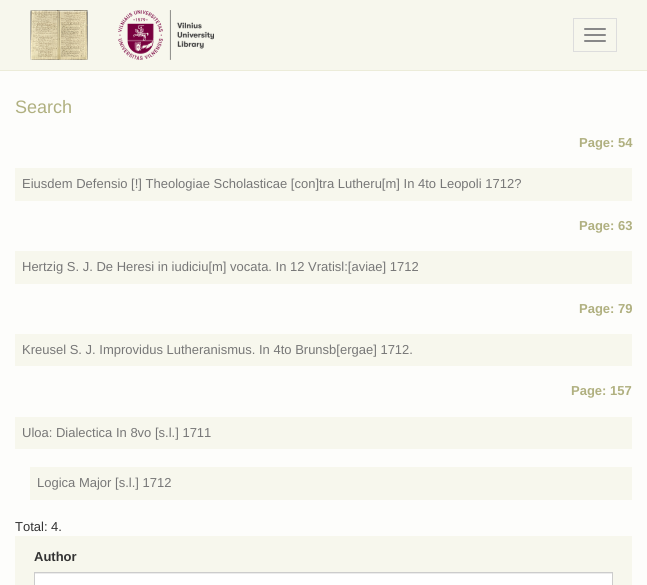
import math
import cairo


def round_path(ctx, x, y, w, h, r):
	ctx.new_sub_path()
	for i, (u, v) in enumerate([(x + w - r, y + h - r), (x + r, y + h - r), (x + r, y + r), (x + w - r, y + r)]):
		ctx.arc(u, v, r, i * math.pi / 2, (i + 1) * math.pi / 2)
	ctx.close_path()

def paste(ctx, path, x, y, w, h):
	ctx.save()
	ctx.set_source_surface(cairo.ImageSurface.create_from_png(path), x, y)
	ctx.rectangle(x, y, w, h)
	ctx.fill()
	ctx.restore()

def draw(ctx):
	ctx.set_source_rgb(0.965, 0.965, 0.929)
	ctx.paint()
	ctx.set_source_rgb(0.925, 0.925, 0.851)
	ctx.rectangle(0, 70, 647, 1)
	ctx.fill()
	paste(ctx, 'media/1.png', 30, 10, 58, 50)
	paste(ctx, 'media/2.png', 118, 10, 96, 50)
	ctx.rectangle(573.5, 18.5, 43, 33)
	ctx.set_source_rgb(0.867, 0.867, 0.867)
	ctx.set_line_width(1)
	ctx.stroke()
	ctx.set_source_rgb(0.533, 0.533, 0.533)
	round_path(ctx, 584, 28, 22, 2, 1)
	ctx.fill()
	round_path(ctx, 584, 34, 22, 2, 1)
	ctx.fill()
	round_path(ctx, 584, 40, 22, 2, 1)
	ctx.fill()
	ctx.set_source_rgb(0.992, 0.992, 0.984)
	ctx.rectangle(0, 71, 647, 514)
	ctx.fill()
	ctx.select_font_face('Liberation Sans')
	ctx.set_font_size(18)
	ctx.set_source_rgb(0.69, 0.69, 0.502)
	ctx.move_to(15, 113)
	ctx.show_text('Search')
	ctx.select_font_face('Liberation Sans', cairo.FONT_SLANT_NORMAL, cairo.FONT_WEIGHT_BOLD)
	ctx.set_font_size(13)
	ctx.move_to(579, 147)
	ctx.show_text('Page: 54')
	ctx.set_source_rgb(0.965, 0.965, 0.929)
	ctx.rectangle(15, 168, 617, 33)
	ctx.fill()
	ctx.select_font_face('Liberation Sans')
	ctx.set_source_rgb(0.467, 0.467, 0.467)
	ctx.move_to(22, 188)
	ctx.show_text('Eiusdem Defensio [!] Theologiae Scholasticae [con]tra Lutheru[m] In 4to Leopoli 1712?')
	ctx.select_font_face('Liberation Sans', cairo.FONT_SLANT_NORMAL, cairo.FONT_WEIGHT_BOLD)
	ctx.set_source_rgb(0.69, 0.69, 0.502)
	ctx.move_to(579, 230)
	ctx.show_text('Page: 63')
	ctx.set_source_rgb(0.965, 0.965, 0.929)
	ctx.rectangle(15, 251, 617, 33)
	ctx.fill()
	ctx.select_font_face('Liberation Sans')
	ctx.set_source_rgb(0.467, 0.467, 0.467)
	ctx.move_to(22, 271)
	ctx.show_text('Hertzig S. J. De Heresi in iudiciu[m] vocata. In 12 Vratisl:[aviae] 1712')
	ctx.select_font_face('Liberation Sans', cairo.FONT_SLANT_NORMAL, cairo.FONT_WEIGHT_BOLD)
	ctx.set_source_rgb(0.69, 0.69, 0.502)
	ctx.move_to(579, 313)
	ctx.show_text('Page: 79')
	ctx.set_source_rgb(0.965, 0.965, 0.929)
	ctx.rectangle(15, 334, 617, 32)
	ctx.fill()
	ctx.select_font_face('Liberation Sans')
	ctx.set_source_rgb(0.467, 0.467, 0.467)
	ctx.move_to(22, 354)
	ctx.show_text('Kreusel S. J. Improvidus Lutheranismus. In 4to Brunsb[ergae] 1712.')
	ctx.select_font_face('Liberation Sans', cairo.FONT_SLANT_NORMAL, cairo.FONT_WEIGHT_BOLD)
	ctx.set_source_rgb(0.69, 0.69, 0.502)
	ctx.move_to(571, 395)
	ctx.show_text('Page: 157')
	ctx.set_source_rgb(0.965, 0.965, 0.929)
	ctx.rectangle(15, 417, 617, 32)
	ctx.fill()
	ctx.select_font_face('Liberation Sans')
	ctx.set_source_rgb(0.467, 0.467, 0.467)
	ctx.move_to(22, 437)
	ctx.show_text('Uloa: Dialectica In 8vo [s.l.] 1711')
	ctx.set_source_rgb(0.965, 0.965, 0.929)
	ctx.rectangle(30, 467, 602, 33)
	ctx.fill()
	ctx.set_source_rgb(0.467, 0.467, 0.467)
	ctx.move_to(37, 487)
	ctx.show_text('Logica Major [s.l.] 1712')
	ctx.set_source_rgb(0.2, 0.2, 0.2)
	ctx.move_to(15, 531)
	ctx.show_text('Total: 4.')
	ctx.set_source_rgb(0.965, 0.965, 0.929)
	ctx.rectangle(15, 536, 617, 49)
	ctx.fill()
	ctx.select_font_face('Liberation Sans', cairo.FONT_SLANT_NORMAL, cairo.FONT_WEIGHT_BOLD)
	ctx.set_source_rgb(0.2, 0.2, 0.2)
	ctx.move_to(34, 561)
	ctx.show_text('Author')
	ctx.set_source_rgb(1, 1, 1)
	ctx.rectangle(35, 574, 577, 11)
	ctx.fill()
	ctx.set_source_rgb(0.925, 0.925, 0.925)
	ctx.rectangle(35, 573, 577, 1)
	ctx.fill()
	ctx.rectangle(34.5, 572.5, 578, 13)
	ctx.set_source_rgb(0.8, 0.8, 0.8)
	ctx.stroke()


surface = cairo.ImageSurface(cairo.FORMAT_RGB24, 647, 585)
ctx = cairo.Context(surface)
options = cairo.FontOptions()
options.set_hint_metrics(cairo.HINT_METRICS_OFF)
options.set_hint_style(cairo.HINT_STYLE_NONE)
ctx.set_font_options(options)
ctx.set_miter_limit(4)
draw(ctx)
surface.write_to_png('image.png')
